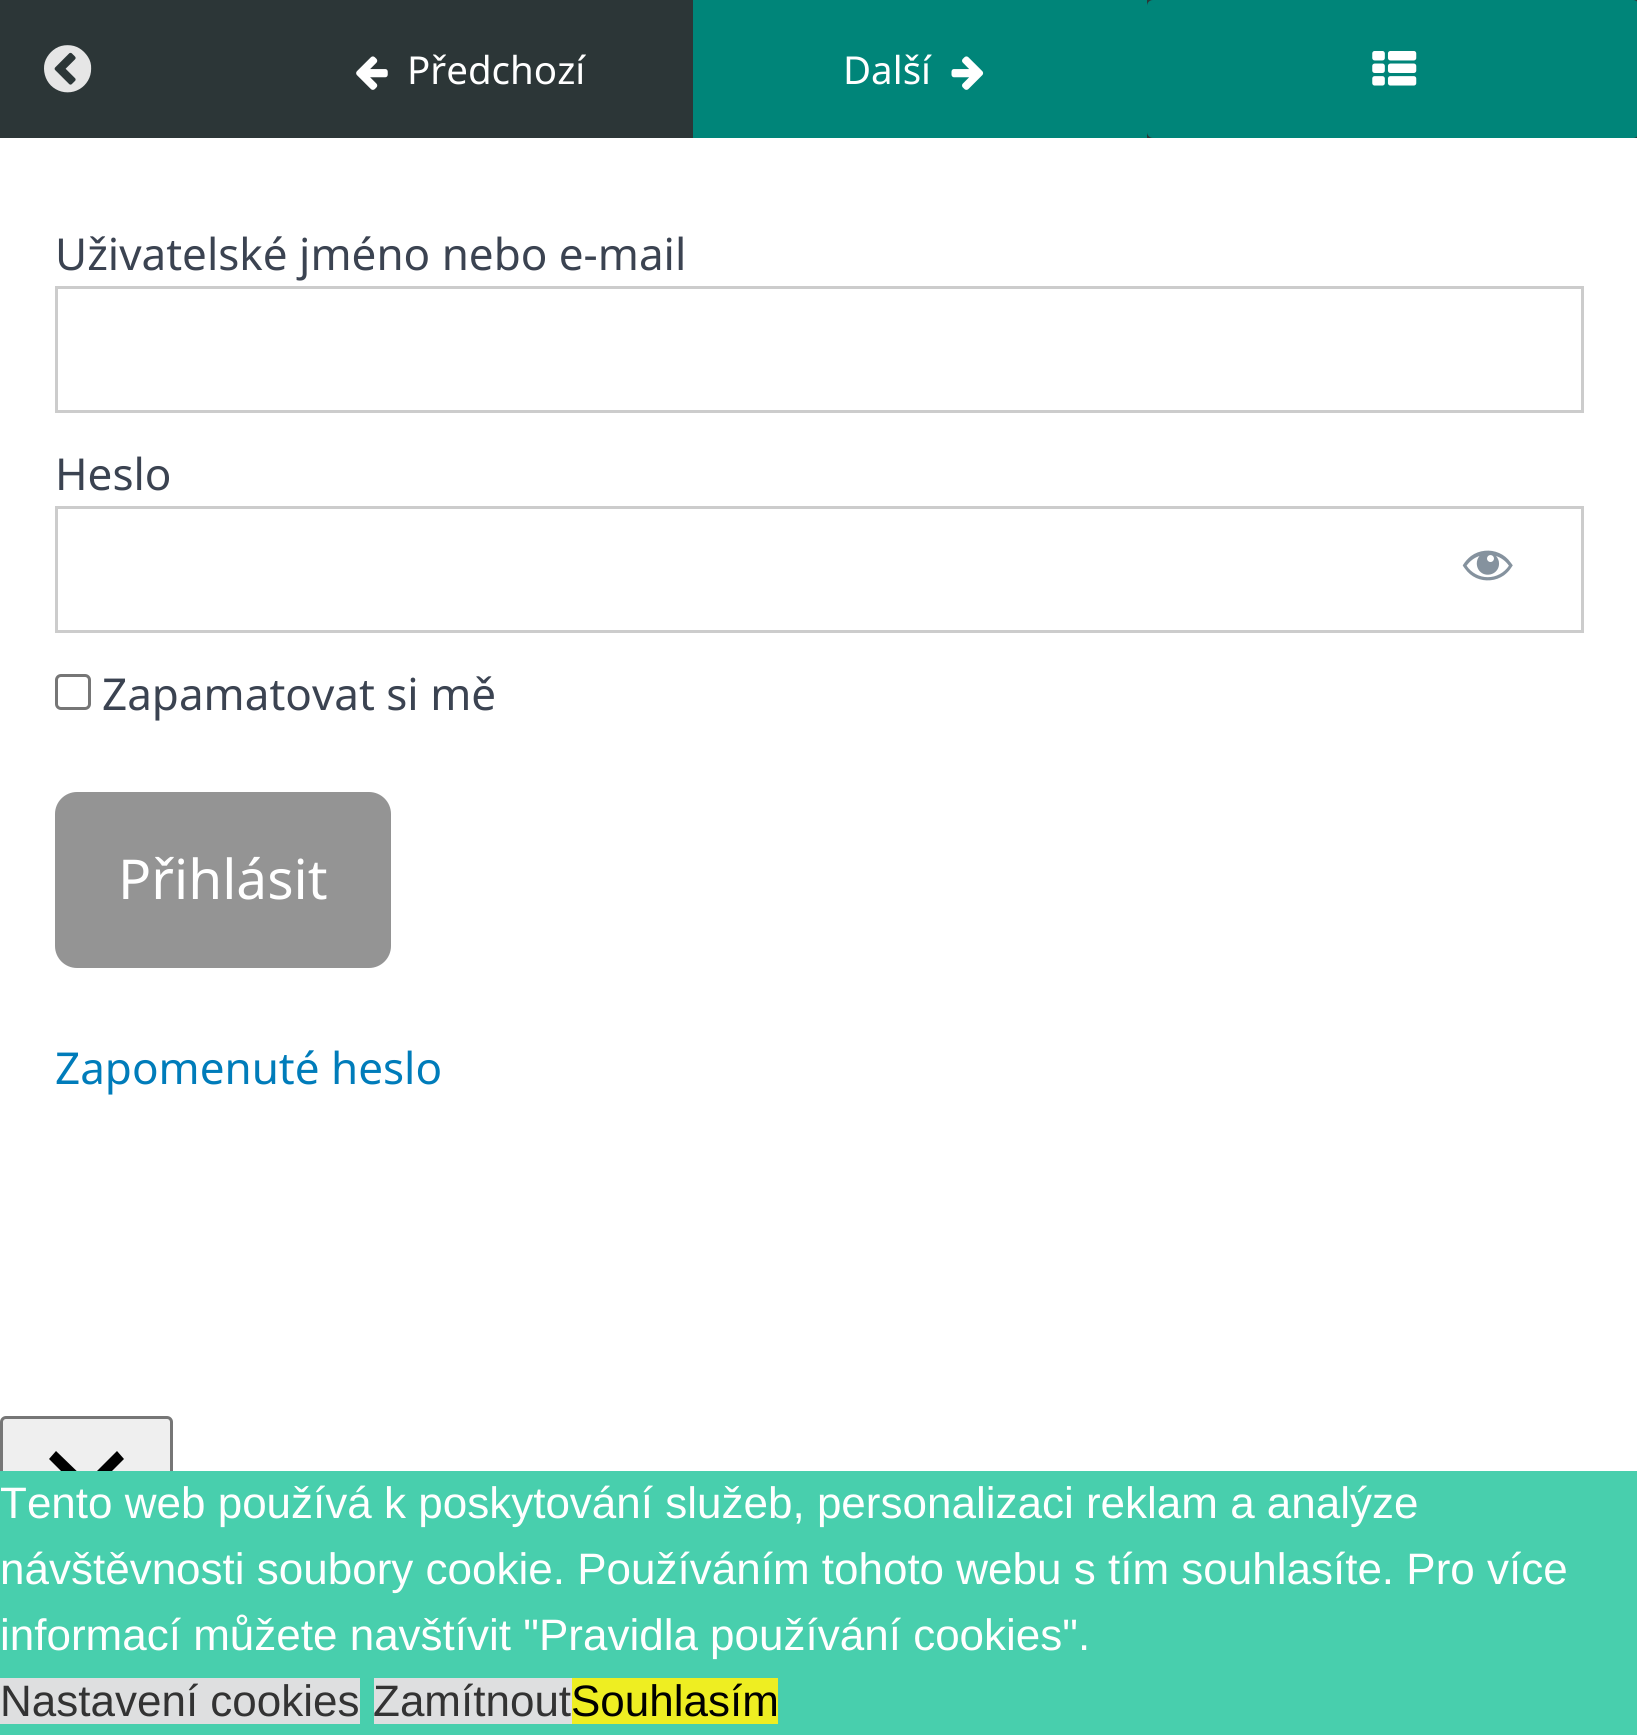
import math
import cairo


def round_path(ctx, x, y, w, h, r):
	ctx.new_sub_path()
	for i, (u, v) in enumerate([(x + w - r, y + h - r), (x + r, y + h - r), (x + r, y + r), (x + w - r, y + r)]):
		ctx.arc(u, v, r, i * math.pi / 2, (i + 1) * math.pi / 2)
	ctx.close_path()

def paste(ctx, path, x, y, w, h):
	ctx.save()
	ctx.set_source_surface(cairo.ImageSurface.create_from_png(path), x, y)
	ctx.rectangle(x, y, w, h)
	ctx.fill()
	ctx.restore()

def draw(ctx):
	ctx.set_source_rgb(1, 1, 1)
	ctx.paint()
	ctx.set_source_rgb(0.173, 0.212, 0.216)
	ctx.rectangle(0, 0, 1637, 138)
	ctx.fill()
	paste(ctx, 'media/1.png', 44, 45, 48, 48)
	paste(ctx, 'media/2.png', 356, 56, 32, 34)
	ctx.select_font_face('Noto Sans')
	ctx.set_font_size(38.5)
	ctx.set_source_rgb(1, 1, 1)
	ctx.move_to(407, 84)
	ctx.show_text('Předchozí')
	ctx.set_source_rgb(0, 0.522, 0.475)
	ctx.rectangle(693, 0, 454, 138)
	ctx.fill()
	ctx.set_source_rgb(1, 1, 1)
	ctx.move_to(843, 84)
	ctx.show_text('Další')
	paste(ctx, 'media/3.png', 951, 56, 33, 34)
	ctx.set_source_rgb(0, 0.522, 0.475)
	round_path(ctx, 1147, 0, 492, 138, 6)
	ctx.fill()
	paste(ctx, 'media/4.png', 1372, 51, 45, 35)
	ctx.set_font_size(44)
	ctx.set_source_rgb(0.231, 0.263, 0.318)
	ctx.move_to(55, 270)
	ctx.show_text('Uživatelské jméno nebo e-mail')
	ctx.rectangle(56.5, 287.5, 1526, 124)
	ctx.set_source_rgb(0.8, 0.8, 0.8)
	ctx.set_line_width(3)
	ctx.stroke()
	ctx.set_source_rgb(0.231, 0.263, 0.318)
	ctx.move_to(55, 490)
	ctx.show_text('Heslo')
	ctx.rectangle(56.5, 507.5, 1526, 124)
	ctx.set_source_rgb(0.8, 0.8, 0.8)
	ctx.stroke()
	paste(ctx, 'media/5.png', 1462, 550, 51, 31)
	round_path(ctx, 56.5, 675.5, 33, 33, 4.5)
	ctx.set_source_rgb(0.463, 0.463, 0.463)
	ctx.stroke()
	ctx.set_source_rgb(0.231, 0.263, 0.318)
	ctx.move_to(102, 710)
	ctx.show_text('Zapamatovat si mě')
	ctx.set_source_rgb(0.58, 0.58, 0.58)
	round_path(ctx, 56.5, 793.5, 333, 173, 20.5)
	ctx.fill_preserve()
	ctx.stroke()
	ctx.set_font_size(55)
	ctx.set_source_rgb(1, 1, 1)
	ctx.move_to(118, 899)
	ctx.show_text('Přihlásit')
	ctx.set_font_size(44)
	ctx.set_source_rgb(0, 0.486, 0.729)
	ctx.move_to(55, 1084)
	ctx.show_text('Zapomenuté heslo')
	ctx.set_source_rgb(0.937, 0.937, 0.937)
	round_path(ctx, 1.5, 1417.5, 170, 226, 4.5)
	ctx.fill_preserve()
	ctx.set_source_rgb(0.463, 0.463, 0.463)
	ctx.stroke()
	ctx.set_source_rgb(0, 0, 0)
	ctx.new_path()
	ctx.move_to(124, 1459)
	ctx.line_to(117, 1451)
	ctx.line_to(87, 1481)
	ctx.line_to(56, 1451)
	ctx.line_to(49, 1459)
	ctx.line_to(79, 1489)
	ctx.line_to(49, 1519)
	ctx.line_to(56, 1527)
	ctx.line_to(87, 1497)
	ctx.line_to(117, 1527)
	ctx.line_to(124, 1519)
	ctx.line_to(94, 1489)
	ctx.close_path()
	ctx.fill()
	ctx.set_source_rgb(0.282, 0.812, 0.678)
	ctx.rectangle(0, 1471, 1637, 264)
	ctx.fill()
	ctx.select_font_face('Liberation Sans')
	ctx.set_source_rgb(1, 1, 1)
	for x, y, s in [
		(0, 1518, 'Tento web používá k poskytování služeb, personalizaci reklam a analýze'),
		(0, 1584, 'návštěvnosti soubory cookie. Používáním tohoto webu s tím souhlasíte. Pro více'),
		(0, 1650, 'informací můžete navštívit "Pravidla používání cookies".'),
	]:
		ctx.move_to(x, y)
		ctx.show_text(s)
	ctx.set_source_rgb(0.871, 0.875, 0.878)
	ctx.rectangle(0, 1678, 360, 46)
	ctx.fill()
	ctx.set_source_rgb(0.2, 0.2, 0.2)
	ctx.move_to(0, 1716)
	ctx.show_text('Nastavení cookies')
	ctx.set_source_rgb(0.871, 0.875, 0.878)
	ctx.rectangle(374, 1678, 198, 46)
	ctx.fill()
	ctx.set_source_rgb(0.2, 0.2, 0.2)
	ctx.move_to(373, 1716)
	ctx.show_text('Zamítnout')
	ctx.set_source_rgb(0.933, 0.933, 0.133)
	ctx.rectangle(572, 1678, 206, 46)
	ctx.fill()
	ctx.set_source_rgb(0, 0, 0)
	ctx.move_to(571, 1716)
	ctx.show_text('Souhlasím')


surface = cairo.ImageSurface(cairo.FORMAT_RGB24, 1637, 1735)
ctx = cairo.Context(surface)
options = cairo.FontOptions()
options.set_hint_metrics(cairo.HINT_METRICS_OFF)
options.set_hint_style(cairo.HINT_STYLE_NONE)
ctx.set_font_options(options)
ctx.set_miter_limit(4)
draw(ctx)
surface.write_to_png('image.png')
